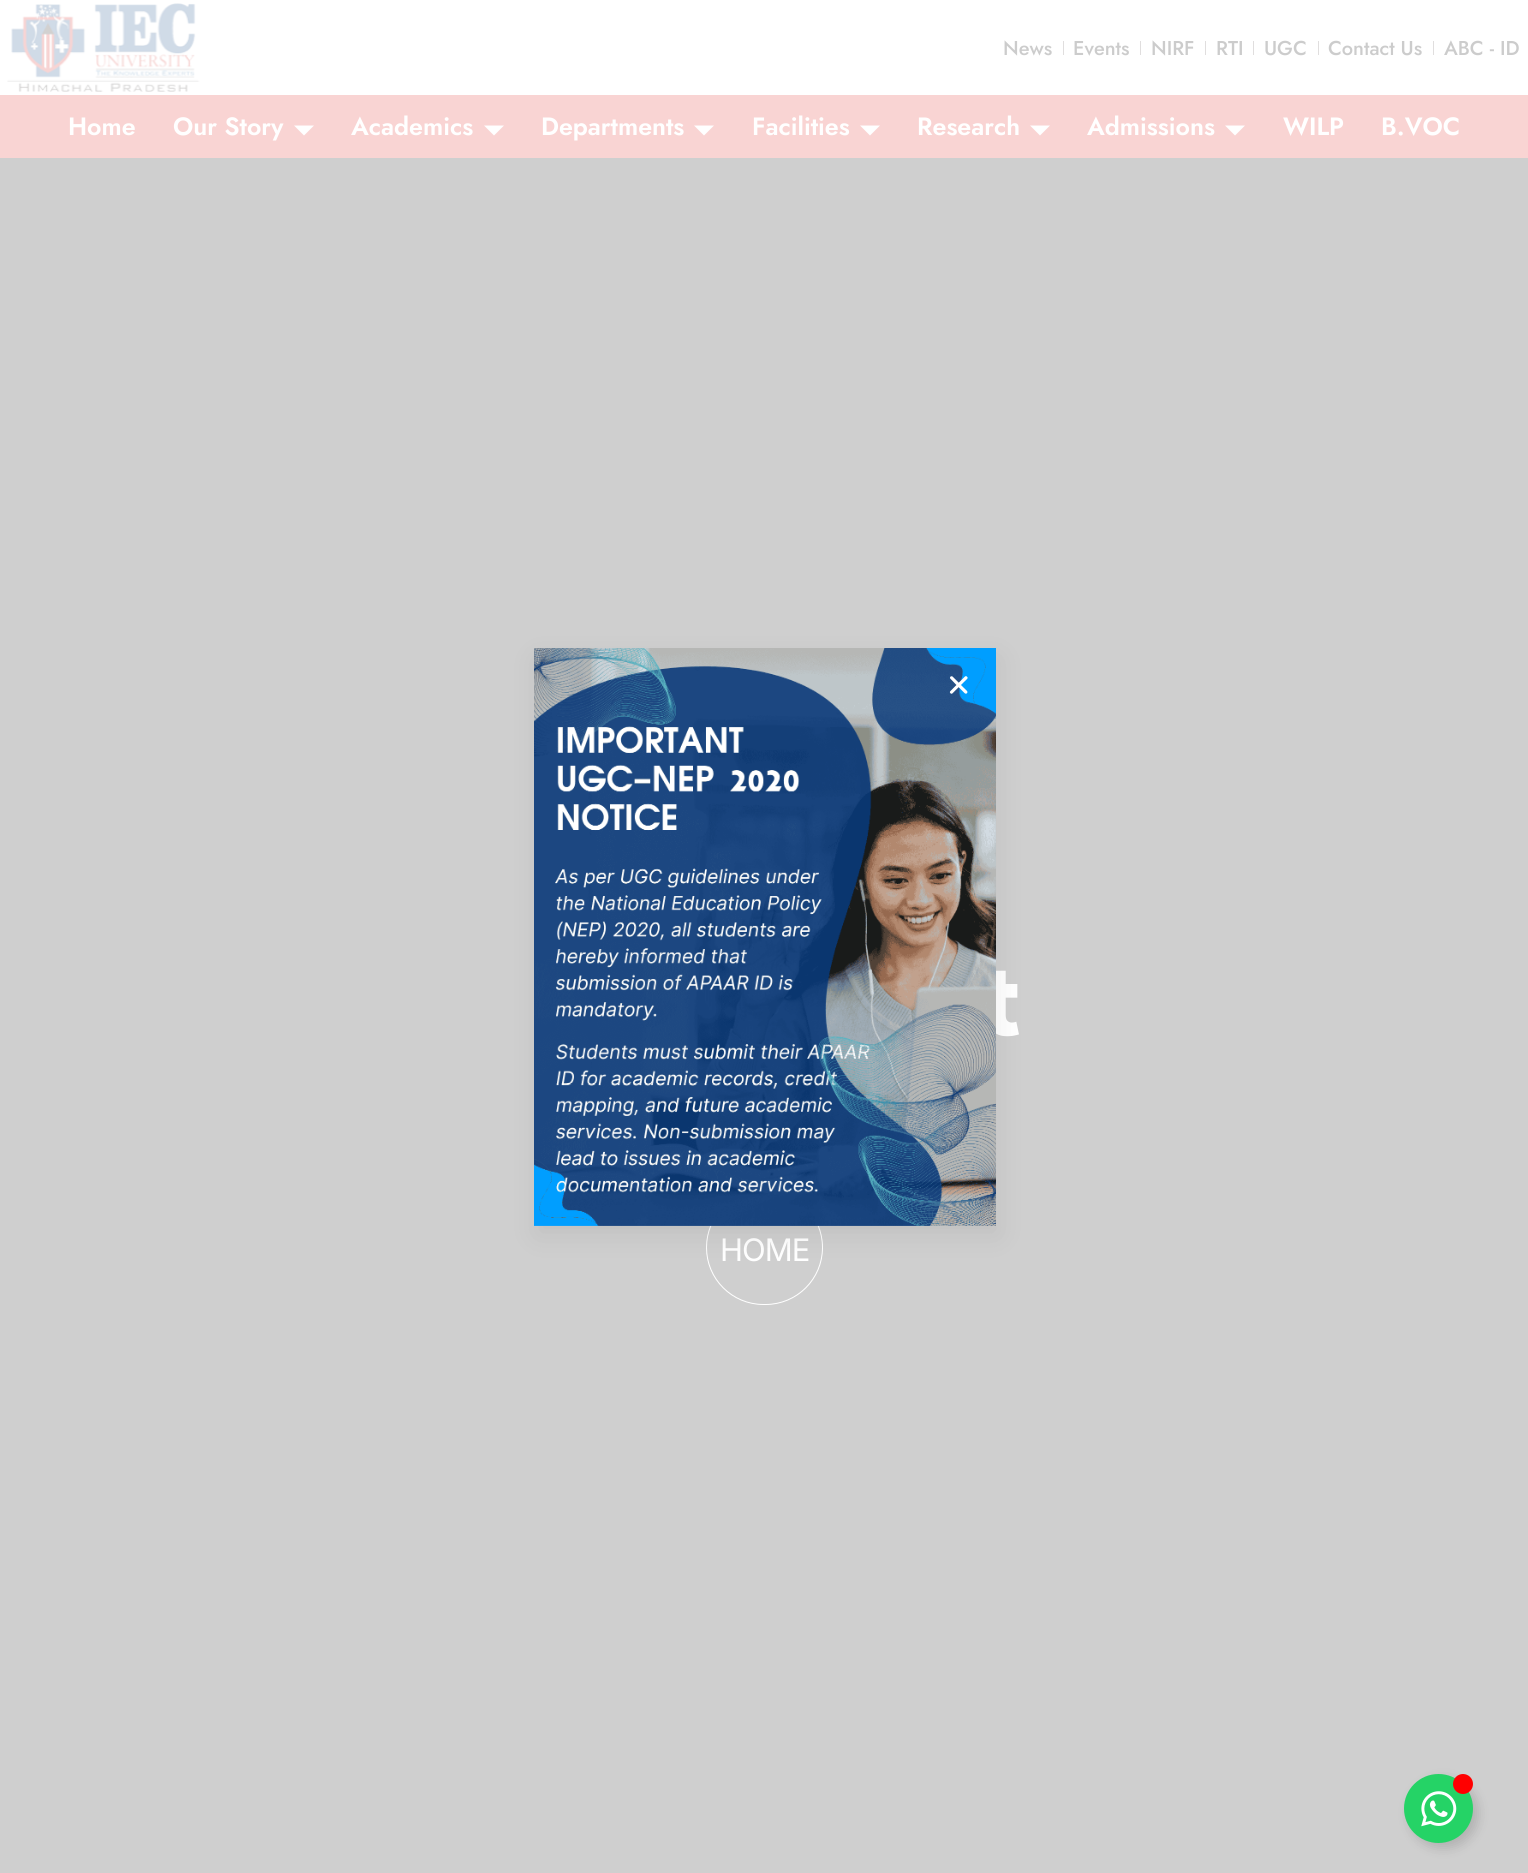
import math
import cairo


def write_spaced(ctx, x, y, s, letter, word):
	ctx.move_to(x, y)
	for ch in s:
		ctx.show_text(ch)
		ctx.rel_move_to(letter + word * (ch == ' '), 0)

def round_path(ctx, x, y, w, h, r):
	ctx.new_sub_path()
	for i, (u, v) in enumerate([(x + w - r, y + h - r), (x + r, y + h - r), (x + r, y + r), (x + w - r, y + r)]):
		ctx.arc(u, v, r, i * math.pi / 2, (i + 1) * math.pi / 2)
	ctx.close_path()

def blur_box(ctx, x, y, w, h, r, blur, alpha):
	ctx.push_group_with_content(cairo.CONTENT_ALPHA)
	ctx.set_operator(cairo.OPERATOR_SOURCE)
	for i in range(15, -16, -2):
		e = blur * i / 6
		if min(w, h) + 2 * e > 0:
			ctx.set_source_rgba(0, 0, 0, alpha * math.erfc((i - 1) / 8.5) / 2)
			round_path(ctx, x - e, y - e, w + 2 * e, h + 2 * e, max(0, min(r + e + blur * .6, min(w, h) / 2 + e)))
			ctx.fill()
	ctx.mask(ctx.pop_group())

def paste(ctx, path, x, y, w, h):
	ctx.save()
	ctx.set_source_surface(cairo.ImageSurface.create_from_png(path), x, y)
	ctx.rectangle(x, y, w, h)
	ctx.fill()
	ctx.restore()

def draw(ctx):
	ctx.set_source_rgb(1, 1, 1)
	ctx.paint()
	paste(ctx, 'media/1.png', 7, 3, 193, 89)
	ctx.select_font_face('Jost Medium')
	ctx.set_font_size(20)
	ctx.set_source_rgb(0.8, 0.8, 0.8)
	ctx.move_to(1003, 55)
	ctx.show_text('News')
	ctx.set_source_rgb(0.878, 0.871, 0.871)
	ctx.rectangle(1063, 41, 1, 14)
	ctx.fill()
	ctx.set_source_rgb(0.8, 0.8, 0.8)
	ctx.move_to(1073, 55)
	ctx.show_text('Events')
	ctx.set_source_rgb(0.878, 0.871, 0.871)
	ctx.rectangle(1140, 41, 1, 14)
	ctx.fill()
	ctx.set_source_rgb(0.8, 0.8, 0.8)
	ctx.move_to(1151, 55)
	ctx.show_text('NIRF')
	ctx.set_source_rgb(0.878, 0.871, 0.871)
	ctx.rectangle(1205, 41, 1, 14)
	ctx.fill()
	ctx.set_source_rgb(0.8, 0.8, 0.8)
	ctx.move_to(1216, 55)
	ctx.show_text('RTI')
	ctx.set_source_rgb(0.878, 0.871, 0.871)
	ctx.rectangle(1253, 41, 1, 14)
	ctx.fill()
	ctx.set_source_rgb(0.8, 0.8, 0.8)
	ctx.move_to(1264, 55)
	ctx.show_text('UGC')
	ctx.set_source_rgb(0.878, 0.871, 0.871)
	ctx.rectangle(1318, 41, 1, 14)
	ctx.fill()
	ctx.set_source_rgb(0.8, 0.8, 0.8)
	ctx.move_to(1328, 55)
	ctx.show_text('Contact Us')
	ctx.set_source_rgb(0.878, 0.871, 0.871)
	ctx.rectangle(1433, 41, 1, 14)
	ctx.fill()
	ctx.set_source_rgb(0.8, 0.8, 0.8)
	ctx.move_to(1444, 55)
	ctx.show_text('ABC - ID')
	ctx.set_source_rgb(0.976, 0.831, 0.827)
	ctx.rectangle(0, 95, 1528, 63)
	ctx.fill()
	ctx.select_font_face('Jost SemiBold')
	ctx.set_font_size(25)
	ctx.set_source_rgb(1, 1, 1)
	ctx.move_to(68, 135)
	ctx.show_text('Home')
	ctx.move_to(173, 135)
	ctx.show_text('Our Story')
	ctx.new_path()
	ctx.move_to(294, 125.5)
	ctx.line_to(314, 125.5)
	ctx.line_to(304, 135.5)
	ctx.close_path()
	ctx.fill()
	ctx.move_to(351, 135)
	ctx.show_text('Academics')
	ctx.new_path()
	ctx.move_to(484, 125.5)
	ctx.line_to(504, 125.5)
	ctx.line_to(494, 135.5)
	ctx.close_path()
	ctx.fill()
	ctx.move_to(541, 135)
	ctx.show_text('Departments')
	ctx.new_path()
	ctx.move_to(694, 125.5)
	ctx.line_to(714, 125.5)
	ctx.line_to(704, 135.5)
	ctx.close_path()
	ctx.fill()
	ctx.move_to(752, 135)
	ctx.show_text('Facilities')
	ctx.new_path()
	ctx.move_to(860, 125.5)
	ctx.line_to(880, 125.5)
	ctx.line_to(870, 135.5)
	ctx.close_path()
	ctx.fill()
	ctx.move_to(917, 135)
	ctx.show_text('Research')
	ctx.new_path()
	ctx.move_to(1030, 125.5)
	ctx.line_to(1050, 125.5)
	ctx.line_to(1040, 135.5)
	ctx.close_path()
	ctx.fill()
	ctx.move_to(1087, 135)
	ctx.show_text('Admissions')
	ctx.new_path()
	ctx.move_to(1225, 125.5)
	ctx.line_to(1245, 125.5)
	ctx.line_to(1235, 135.5)
	ctx.close_path()
	ctx.fill()
	ctx.move_to(1283, 135)
	ctx.show_text('WILP')
	ctx.move_to(1381, 135)
	ctx.show_text('B.VOC')
	ctx.set_source_rgb(0.812, 0.812, 0.812)
	ctx.rectangle(0, 158, 1528, 1715)
	ctx.fill()
	ctx.select_font_face('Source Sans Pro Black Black')
	ctx.set_font_size(102)
	ctx.set_source_rgb(1, 1, 1)
	ctx.move_to(980, 1035)
	ctx.show_text('t')
	round_path(ctx, 706.5, 1190.5, 116, 114, 57)
	ctx.set_line_width(1)
	ctx.stroke()
	ctx.select_font_face('Inter')
	ctx.set_font_size(31)
	write_spaced(ctx, 720, 1261, 'HOME', -1, 0)
	ctx.set_source_rgb(0, 0, 0)
	blur_box(ctx, 536, 658, 463, 578, 0, 14.5, 0.07)
	paste(ctx, 'media/2.png', 534, 648, 462, 578)
	paste(ctx, 'media/3.png', 949, 676, 19, 18)
	blur_box(ctx, 1409, 1779, 69, 69, 34.5, 6, 0.15)
	ctx.set_source_rgb(0.145, 0.827, 0.4)
	ctx.arc(1438.5, 1808.5, 34.5, 0, 2 * math.pi)
	ctx.fill()
	paste(ctx, 'media/4.png', 1421, 1791, 36, 36)
	ctx.set_source_rgb(1, 0, 0)
	ctx.arc(1463, 1784, 10, 0, 2 * math.pi)
	ctx.fill()


surface = cairo.ImageSurface(cairo.FORMAT_RGB24, 1528, 1873)
ctx = cairo.Context(surface)
options = cairo.FontOptions()
options.set_hint_metrics(cairo.HINT_METRICS_OFF)
options.set_hint_style(cairo.HINT_STYLE_NONE)
ctx.set_font_options(options)
ctx.set_miter_limit(4)
draw(ctx)
surface.write_to_png('image.png')
